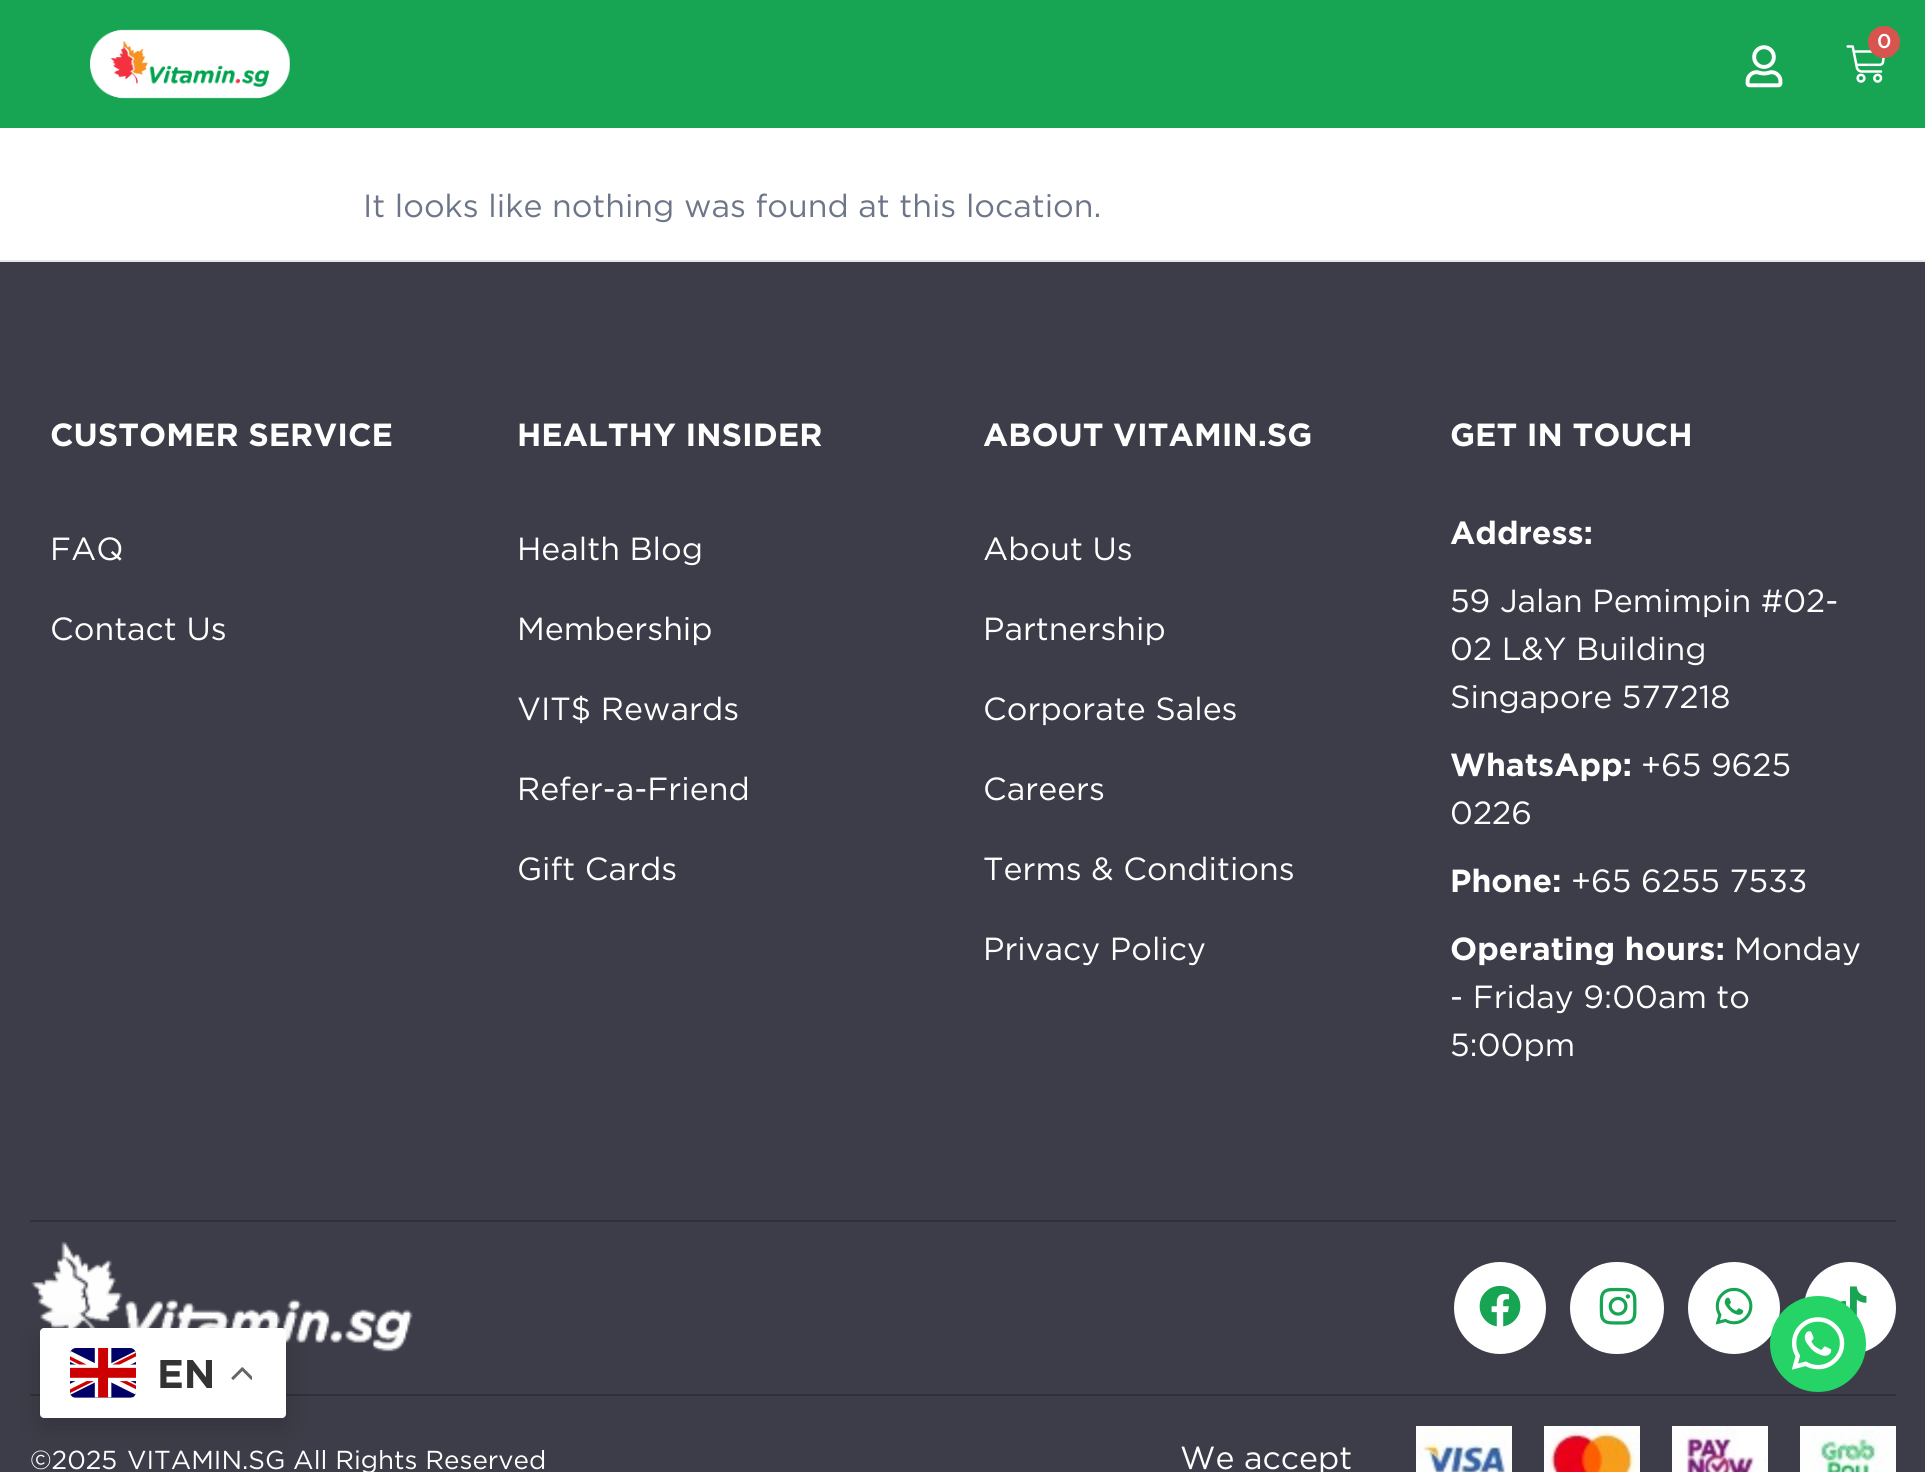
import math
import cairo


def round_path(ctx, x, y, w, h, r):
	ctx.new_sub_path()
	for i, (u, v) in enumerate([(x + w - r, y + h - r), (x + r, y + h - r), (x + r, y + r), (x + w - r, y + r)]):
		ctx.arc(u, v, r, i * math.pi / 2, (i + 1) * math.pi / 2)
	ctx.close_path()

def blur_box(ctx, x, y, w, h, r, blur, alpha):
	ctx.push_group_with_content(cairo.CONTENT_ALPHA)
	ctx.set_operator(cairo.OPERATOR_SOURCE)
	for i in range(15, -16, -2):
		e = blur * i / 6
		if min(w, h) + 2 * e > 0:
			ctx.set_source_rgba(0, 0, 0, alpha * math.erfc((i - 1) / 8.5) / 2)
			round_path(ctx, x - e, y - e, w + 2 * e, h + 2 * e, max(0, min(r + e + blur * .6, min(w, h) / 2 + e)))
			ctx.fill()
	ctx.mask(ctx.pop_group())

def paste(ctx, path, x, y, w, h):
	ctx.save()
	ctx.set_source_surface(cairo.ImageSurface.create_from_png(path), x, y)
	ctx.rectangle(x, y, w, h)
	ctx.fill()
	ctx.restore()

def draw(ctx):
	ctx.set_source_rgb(1, 1, 1)
	ctx.paint()
	ctx.set_source_rgb(0.09, 0.647, 0.329)
	ctx.rectangle(0, 0, 1925, 128)
	ctx.fill()
	paste(ctx, 'media/1.png', 90, 29, 200, 70)
	paste(ctx, 'media/2.png', 1846, 45, 39, 38)
	ctx.set_source_rgb(0.851, 0.325, 0.31)
	ctx.arc(1884, 42, 16, 0, 2 * math.pi)
	ctx.fill()
	ctx.select_font_face('Gotham Medium')
	ctx.set_font_size(20)
	ctx.set_source_rgb(1, 1, 1)
	ctx.move_to(1877, 48)
	ctx.show_text('0')
	paste(ctx, 'media/3.png', 1745, 45, 38, 43)
	ctx.select_font_face('Gotham')
	ctx.set_font_size(32)
	ctx.set_source_rgb(0.427, 0.459, 0.533)
	ctx.move_to(363, 217)
	ctx.show_text('It looks like nothing was found at this location.')
	ctx.set_source_rgb(0.239, 0.239, 0.286)
	ctx.rectangle(0, 262, 1925, 1210)
	ctx.fill()
	ctx.set_source_rgb(0.898, 0.898, 0.918)
	ctx.rectangle(0, 260, 1925, 2)
	ctx.fill()
	ctx.select_font_face('Gotham', cairo.FONT_SLANT_NORMAL, cairo.FONT_WEIGHT_BOLD)
	ctx.set_source_rgb(1, 1, 1)
	ctx.move_to(50, 446)
	ctx.show_text('CUSTOMER SERVICE')
	ctx.select_font_face('Gotham')
	ctx.move_to(50, 560)
	ctx.show_text('FAQ')
	ctx.move_to(50, 640)
	ctx.show_text('Contact Us')
	ctx.select_font_face('Gotham', cairo.FONT_SLANT_NORMAL, cairo.FONT_WEIGHT_BOLD)
	ctx.move_to(517, 446)
	ctx.show_text('HEALTHY INSIDER')
	ctx.select_font_face('Gotham')
	for x, y, s in [
		(517, 560, 'Health Blog'),
		(517, 640, 'Membership'),
		(517, 720, 'VIT$ Rewards'),
		(517, 800, 'Refer-a-Friend'),
		(517, 880, 'Gift Cards'),
	]:
		ctx.move_to(x, y)
		ctx.show_text(s)
	ctx.select_font_face('Gotham', cairo.FONT_SLANT_NORMAL, cairo.FONT_WEIGHT_BOLD)
	ctx.move_to(983, 446)
	ctx.show_text('ABOUT VITAMIN.SG')
	ctx.select_font_face('Gotham')
	for x, y, s in [
		(983, 560, 'About Us'),
		(983, 640, 'Partnership'),
		(983, 720, 'Corporate Sales'),
		(983, 800, 'Careers'),
		(983, 880, 'Terms & Conditions'),
		(983, 960, 'Privacy Policy'),
	]:
		ctx.move_to(x, y)
		ctx.show_text(s)
	ctx.select_font_face('Gotham', cairo.FONT_SLANT_NORMAL, cairo.FONT_WEIGHT_BOLD)
	ctx.move_to(1450, 446)
	ctx.show_text('GET IN TOUCH')
	ctx.move_to(1450, 544)
	ctx.show_text('Address:')
	ctx.select_font_face('Gotham')
	for x, y, s in [
		(1450, 612, '59 Jalan Pemimpin #02-'),
		(1450, 660, '02 L&Y Building'),
		(1450, 708, 'Singapore 577218'),
	]:
		ctx.move_to(x, y)
		ctx.show_text(s)
	ctx.select_font_face('Gotham', cairo.FONT_SLANT_NORMAL, cairo.FONT_WEIGHT_BOLD)
	ctx.move_to(1450, 776)
	ctx.show_text('WhatsApp:')
	ctx.select_font_face('Gotham')
	ctx.move_to(1641, 776)
	ctx.show_text('+65 9625')
	ctx.move_to(1450, 824)
	ctx.show_text('0226')
	ctx.select_font_face('Gotham', cairo.FONT_SLANT_NORMAL, cairo.FONT_WEIGHT_BOLD)
	ctx.move_to(1450, 892)
	ctx.show_text('Phone:')
	ctx.select_font_face('Gotham')
	ctx.move_to(1571, 892)
	ctx.show_text('+65 6255 7533')
	ctx.select_font_face('Gotham', cairo.FONT_SLANT_NORMAL, cairo.FONT_WEIGHT_BOLD)
	ctx.move_to(1450, 960)
	ctx.show_text('Operating hours:')
	ctx.select_font_face('Gotham')
	for x, y, s in [
		(1734, 960, 'Monday'),
		(1450, 1008, '- Friday 9:00am to'),
		(1450, 1056, '5:00pm'),
	]:
		ctx.move_to(x, y)
		ctx.show_text(s)
	ctx.set_source_rgb(0.184, 0.184, 0.212)
	ctx.rectangle(30, 1220, 1866, 2)
	ctx.fill()
	ctx.rectangle(30, 1394, 1866, 2)
	ctx.fill()
	paste(ctx, 'media/4.png', 31, 1242, 382, 110)
	ctx.set_source_rgb(1, 1, 1)
	ctx.arc(1500, 1308, 46, 0, 2 * math.pi)
	ctx.fill()
	paste(ctx, 'media/5.png', 1479, 1285, 42, 42)
	round_path(ctx, 1570, 1262, 94, 92, 46)
	ctx.fill()
	paste(ctx, 'media/6.png', 1599, 1287, 38, 38)
	ctx.arc(1734, 1308, 46, 0, 2 * math.pi)
	ctx.fill()
	paste(ctx, 'media/7.png', 1715, 1287, 38, 38)
	ctx.arc(1850, 1308, 46, 0, 2 * math.pi)
	ctx.fill()
	paste(ctx, 'media/8.png', 1839, 1286, 28, 30)
	ctx.set_font_size(26)
	ctx.move_to(30, 1469)
	ctx.show_text('©2025')
	ctx.move_to(127, 1469)
	ctx.show_text('VITAMIN.SG All Rights Reserved')
	ctx.set_source_rgb(0.145, 0.827, 0.4)
	ctx.new_path()
	ctx.arc(1818, 1344, 48, 0, 2 * math.pi)
	ctx.fill()
	paste(ctx, 'media/9.png', 1791, 1317, 54, 53)
	ctx.set_font_size(32)
	ctx.set_source_rgb(1, 1, 1)
	ctx.move_to(1180, 1469)
	ctx.show_text('We accept')
	paste(ctx, 'media/10.png', 1416, 1426, 96, 46)
	paste(ctx, 'media/11.png', 1544, 1426, 96, 46)
	paste(ctx, 'media/12.png', 1672, 1426, 96, 46)
	paste(ctx, 'media/13.png', 1800, 1426, 96, 46)
	ctx.set_source_rgb(0.239, 0.239, 0.286)
	ctx.new_path()
	ctx.move_to(1679.5, 750)
	ctx.line_to(1670.5, 741)
	ctx.curve_to(1680.5, 727, 1661.5, 710, 1648.5, 722.5)
	ctx.curve_to(1636, 735, 1653, 754, 1667, 744.5)
	ctx.line_to(1676, 753.5)
	ctx.close_path()
	ctx.move_to(1648.5, 732.5)
	ctx.curve_to(1648.5, 719.5, 1669, 719.5, 1669, 732.5)
	ctx.curve_to(1669, 746, 1648.5, 746, 1648.5, 732.5)
	ctx.close_path()
	ctx.fill()
	ctx.set_source_rgb(0, 0, 0)
	blur_box(ctx, 40, 1338, 246, 90, 4, 15, 0.15)
	ctx.set_source_rgb(1, 1, 1)
	round_path(ctx, 40, 1328, 246, 90, 4)
	ctx.fill()
	paste(ctx, 'media/14.png', 70, 1348, 66, 50)
	ctx.select_font_face('Gotham', cairo.FONT_SLANT_NORMAL, cairo.FONT_WEIGHT_BOLD)
	ctx.set_font_size(40)
	ctx.set_source_rgb(0.2, 0.2, 0.2)
	ctx.move_to(157, 1388)
	ctx.show_text('EN')
	paste(ctx, 'media/15.png', 231, 1367, 21, 13)


surface = cairo.ImageSurface(cairo.FORMAT_RGB24, 1925, 1472)
ctx = cairo.Context(surface)
options = cairo.FontOptions()
options.set_hint_metrics(cairo.HINT_METRICS_OFF)
options.set_hint_style(cairo.HINT_STYLE_NONE)
ctx.set_font_options(options)
ctx.set_miter_limit(4)
draw(ctx)
surface.write_to_png('image.png')
